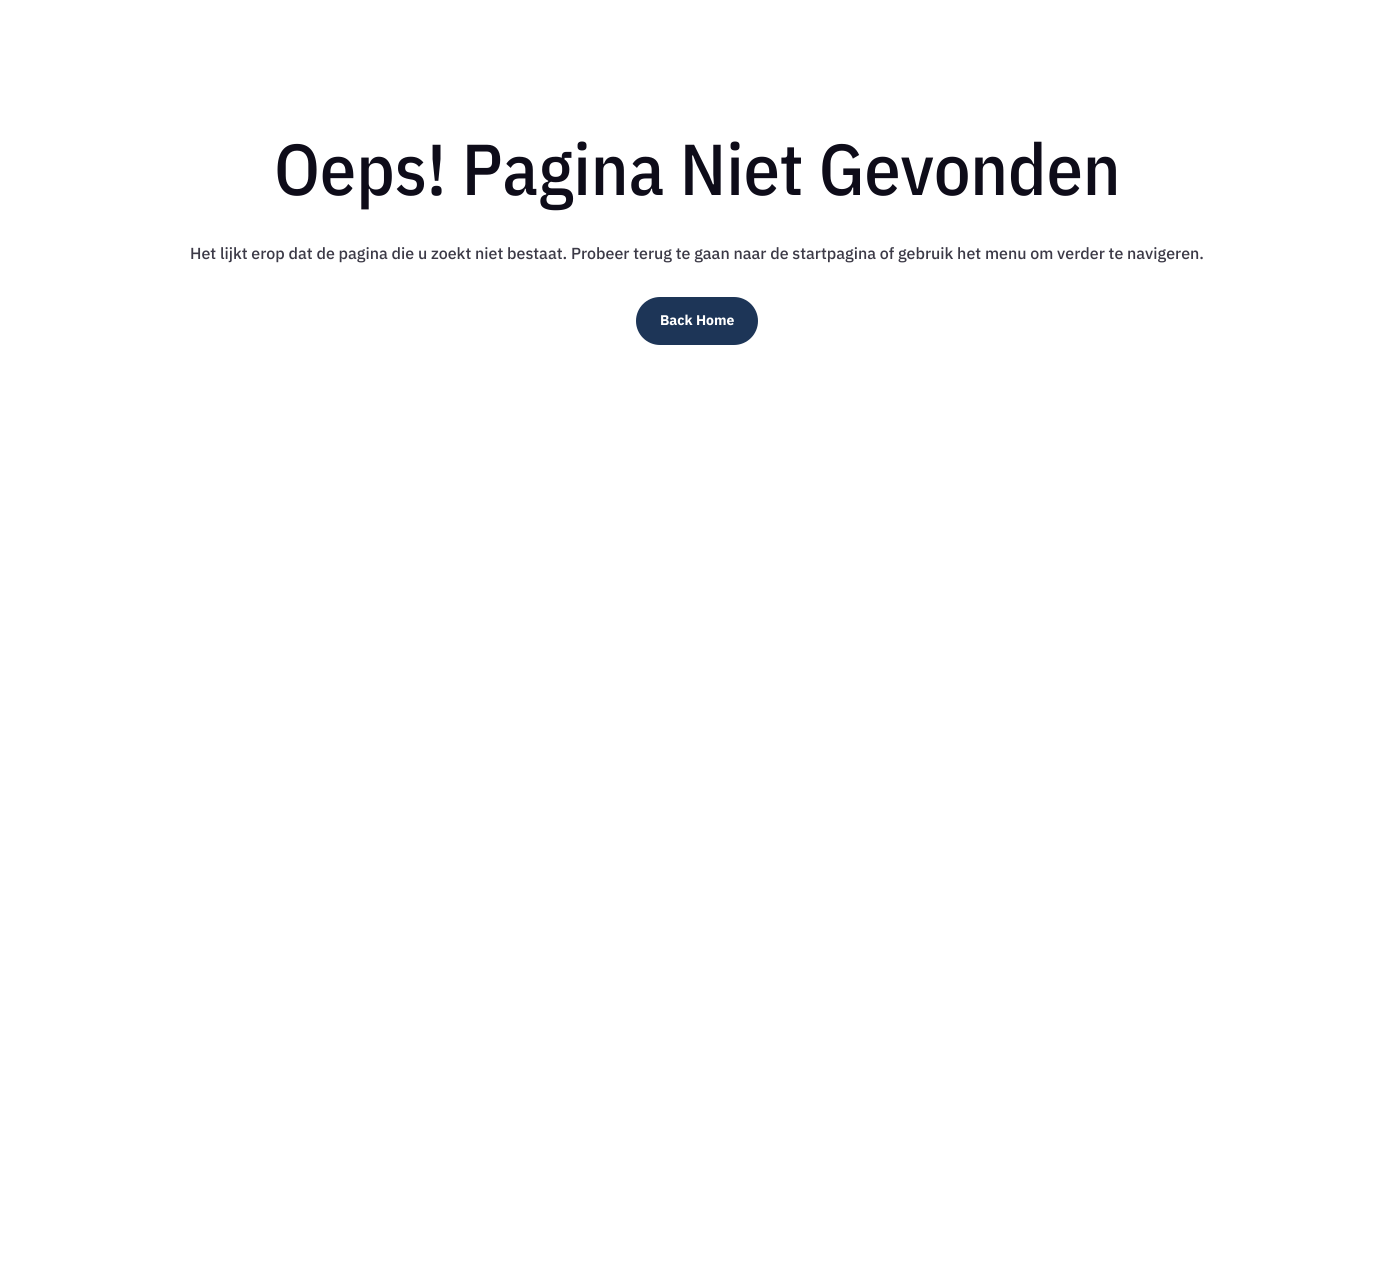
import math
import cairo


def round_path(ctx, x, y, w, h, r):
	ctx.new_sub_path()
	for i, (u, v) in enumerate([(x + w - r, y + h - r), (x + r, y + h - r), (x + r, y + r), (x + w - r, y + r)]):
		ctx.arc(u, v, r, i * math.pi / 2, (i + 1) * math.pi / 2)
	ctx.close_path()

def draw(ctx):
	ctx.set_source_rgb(1, 1, 1)
	ctx.paint()
	ctx.select_font_face('IBM Plex Sans Condensed Medium')
	ctx.set_font_size(72)
	ctx.set_source_rgb(0.055, 0.047, 0.098)
	ctx.move_to(274, 195)
	ctx.show_text('Oeps! Pagina Niet Gevonden')
	ctx.select_font_face('IBM Plex Sans Medium')
	ctx.set_font_size(16)
	ctx.set_source_rgb(0.235, 0.227, 0.278)
	ctx.move_to(190, 259)
	ctx.show_text('Het lijkt erop dat de pagina die u zoekt niet bestaat. Probeer terug te gaan naar de startpagina of gebruik het menu om verder te navigeren.')
	ctx.set_source_rgb(0.114, 0.208, 0.341)
	round_path(ctx, 636, 297, 122, 48, 24)
	ctx.fill()
	ctx.select_font_face('IBM Plex Sans', cairo.FONT_SLANT_NORMAL, cairo.FONT_WEIGHT_BOLD)
	ctx.set_font_size(14)
	ctx.set_source_rgb(1, 1, 1)
	ctx.move_to(660, 325)
	ctx.show_text('Back Home')


surface = cairo.ImageSurface(cairo.FORMAT_RGB24, 1394, 1282)
ctx = cairo.Context(surface)
options = cairo.FontOptions()
options.set_hint_metrics(cairo.HINT_METRICS_OFF)
options.set_hint_style(cairo.HINT_STYLE_NONE)
ctx.set_font_options(options)
ctx.set_miter_limit(4)
draw(ctx)
surface.write_to_png('image.png')
